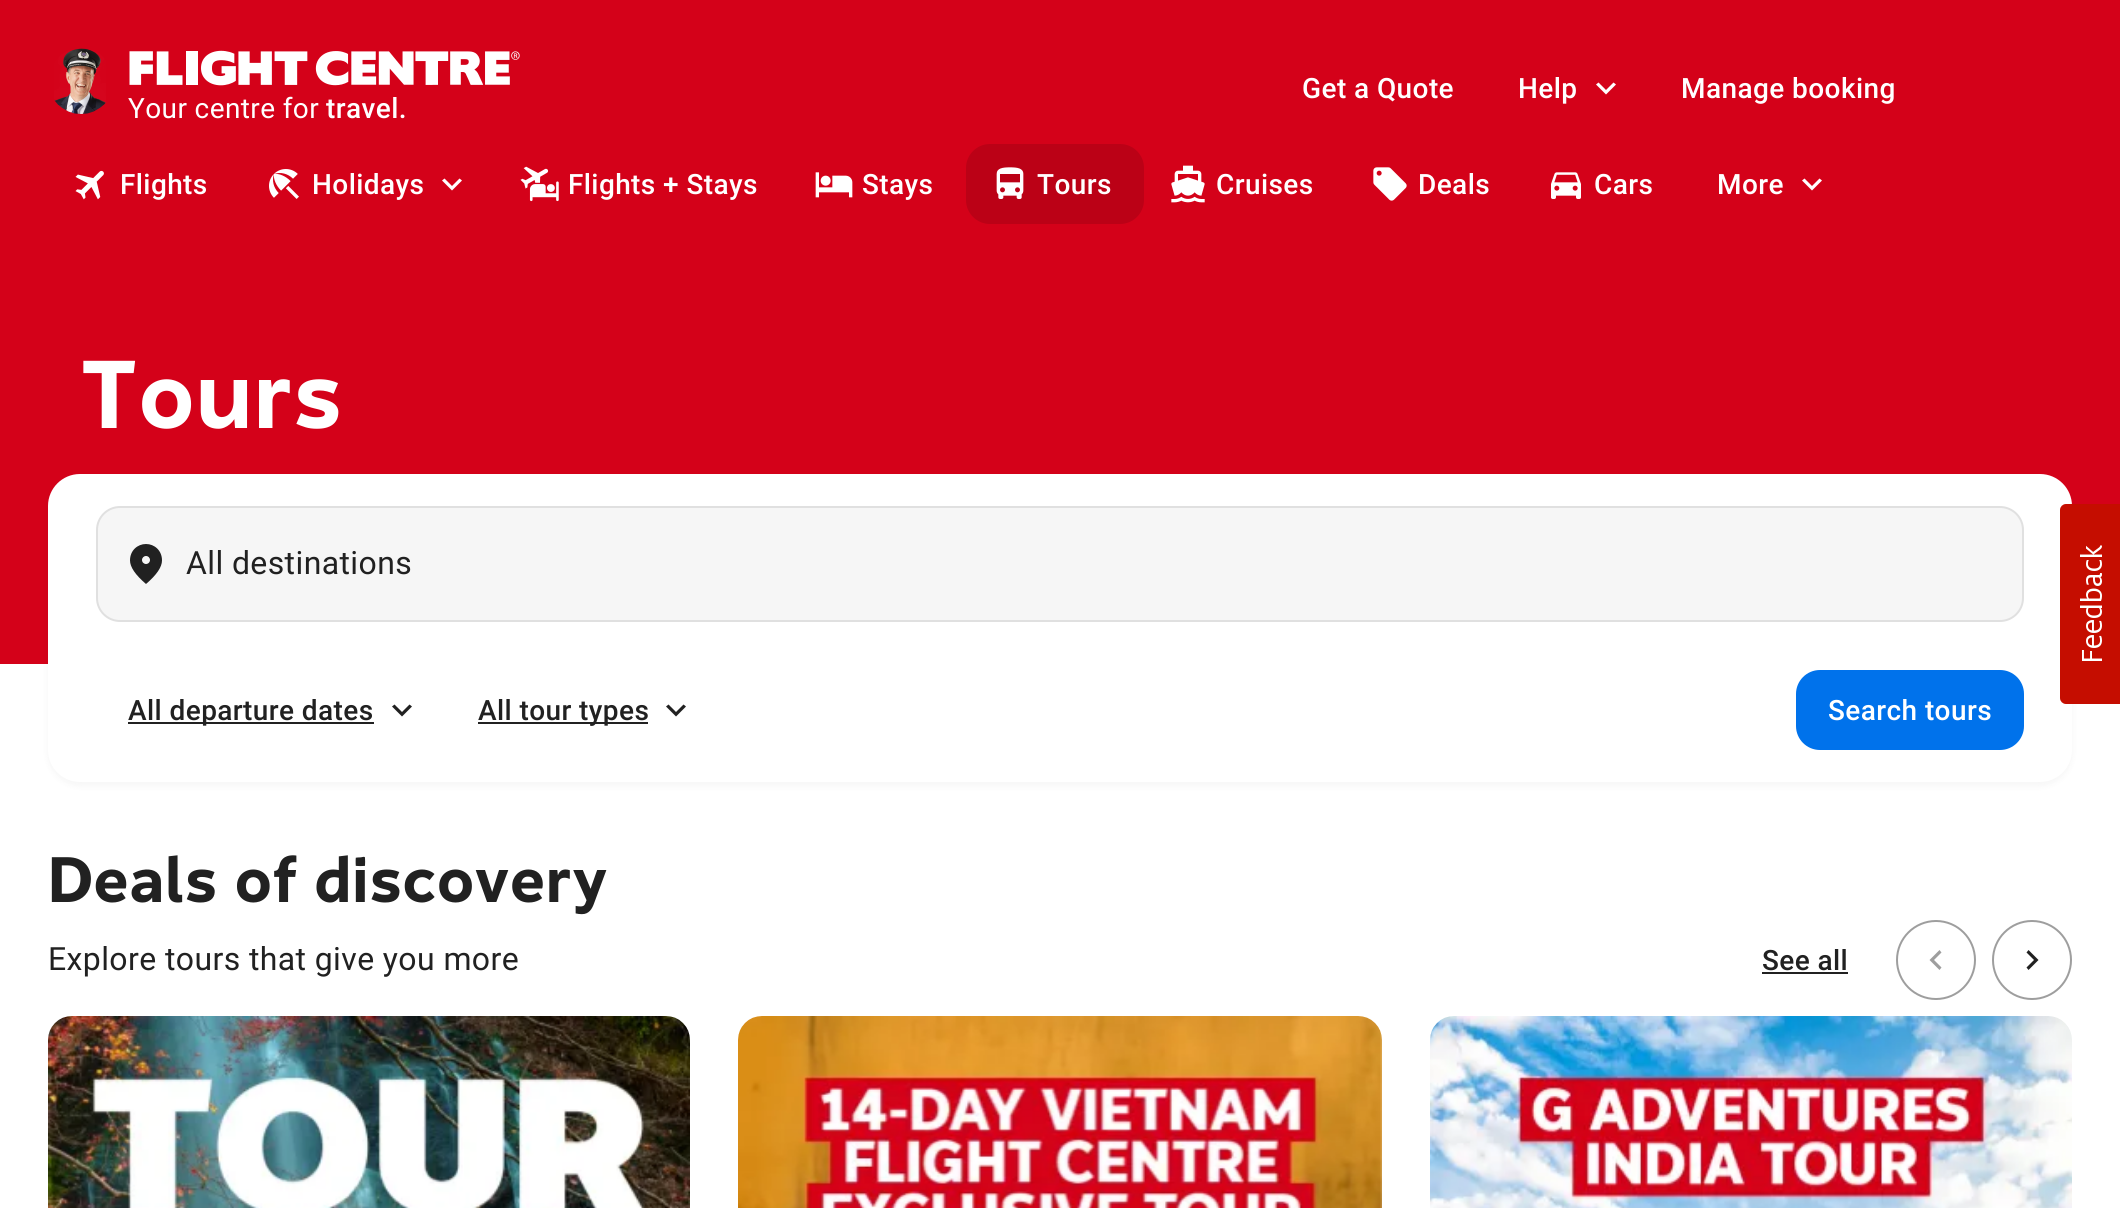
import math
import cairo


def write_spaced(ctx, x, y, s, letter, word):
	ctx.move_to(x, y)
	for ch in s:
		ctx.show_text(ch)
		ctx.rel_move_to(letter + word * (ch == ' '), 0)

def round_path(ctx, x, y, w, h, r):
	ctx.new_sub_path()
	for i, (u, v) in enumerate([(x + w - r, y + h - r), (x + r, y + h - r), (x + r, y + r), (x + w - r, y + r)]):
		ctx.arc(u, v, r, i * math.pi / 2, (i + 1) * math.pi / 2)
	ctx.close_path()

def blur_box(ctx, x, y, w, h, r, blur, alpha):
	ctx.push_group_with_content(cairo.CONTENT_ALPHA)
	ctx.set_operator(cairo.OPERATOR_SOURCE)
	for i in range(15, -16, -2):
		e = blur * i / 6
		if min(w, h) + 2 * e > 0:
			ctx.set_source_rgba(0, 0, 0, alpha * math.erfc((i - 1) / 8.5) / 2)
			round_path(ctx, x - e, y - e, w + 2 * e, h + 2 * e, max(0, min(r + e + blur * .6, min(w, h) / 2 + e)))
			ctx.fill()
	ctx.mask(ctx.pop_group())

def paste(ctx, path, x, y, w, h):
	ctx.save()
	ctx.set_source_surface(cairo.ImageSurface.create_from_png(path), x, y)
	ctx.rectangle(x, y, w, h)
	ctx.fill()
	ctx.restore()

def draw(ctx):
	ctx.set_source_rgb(1, 1, 1)
	ctx.paint()
	ctx.set_source_rgb(0.831, 0.004, 0.098)
	ctx.rectangle(0, 0, 2120, 664)
	ctx.fill()
	ctx.select_font_face('Roboto Medium')
	ctx.set_font_size(28)
	ctx.set_source_rgb(1, 1, 1)
	write_spaced(ctx, 1302, 98, 'Get a Quote', 0.4, 0)
	write_spaced(ctx, 1518, 98, 'Help', 0.4, 0)
	ctx.new_path()
	ctx.move_to(1613.5, 82.5)
	ctx.line_to(1606, 90)
	ctx.line_to(1598.5, 82.5)
	ctx.line_to(1596, 84.5)
	ctx.line_to(1606, 94.5)
	ctx.line_to(1616, 84.5)
	ctx.close_path()
	ctx.fill()
	write_spaced(ctx, 1681, 98, 'Manage booking', 0.4, 0)
	paste(ctx, 'media/1.png', 54, 48, 52, 66)
	paste(ctx, 'media/2.png', 129, 50, 391, 36)
	ctx.select_font_face('Roboto')
	write_spaced(ctx, 128, 118, 'Your centre for', 0.4, 0)
	ctx.select_font_face('Roboto Medium')
	write_spaced(ctx, 326, 118, 'travel.', 0.4, 0)
	paste(ctx, 'media/3.png', 75, 170, 29, 30)
	write_spaced(ctx, 120, 194, 'Flights', 0.4, 0)
	paste(ctx, 'media/4.png', 269, 169, 30, 30)
	write_spaced(ctx, 312, 194, 'Holidays', 0.4, 0)
	ctx.new_path()
	ctx.move_to(459.5, 178.5)
	ctx.line_to(452, 186)
	ctx.line_to(444.5, 178.5)
	ctx.line_to(442, 180.5)
	ctx.line_to(452, 190.5)
	ctx.line_to(462, 180.5)
	ctx.close_path()
	ctx.fill()
	paste(ctx, 'media/5.png', 520, 166, 39, 36)
	write_spaced(ctx, 568, 194, 'Flights + Stays', 0.4, 0)
	paste(ctx, 'media/6.png', 815, 172, 38, 26)
	write_spaced(ctx, 862, 194, 'Stays', 0.4, 0)
	ctx.set_source_rgb(0.733, 0.004, 0.086)
	round_path(ctx, 966, 144, 178, 80, 24)
	ctx.fill()
	paste(ctx, 'media/7.png', 996, 167, 28, 32)
	ctx.set_source_rgb(1, 1, 1)
	write_spaced(ctx, 1037, 194, 'Tours', 0.4, 0)
	paste(ctx, 'media/8.png', 1171, 165, 34, 38)
	write_spaced(ctx, 1216, 194, 'Cruises', 0.4, 0)
	paste(ctx, 'media/9.png', 1373, 167, 34, 34)
	write_spaced(ctx, 1418, 194, 'Deals', 0.4, 0)
	paste(ctx, 'media/10.png', 1551, 172, 30, 27)
	write_spaced(ctx, 1594, 194, 'Cars', 0.4, 0)
	write_spaced(ctx, 1717, 194, 'More', 0.4, 0)
	ctx.new_path()
	ctx.move_to(1819.5, 178.5)
	ctx.line_to(1812, 186)
	ctx.line_to(1804.5, 178.5)
	ctx.line_to(1802, 180.5)
	ctx.line_to(1812, 190.5)
	ctx.line_to(1822, 180.5)
	ctx.close_path()
	ctx.fill()
	ctx.select_font_face('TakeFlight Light')
	ctx.set_font_size(96)
	write_spaced(ctx, 80, 428, 'Tours', 0.4, 0)
	ctx.set_source_rgb(0, 0, 0)
	blur_box(ctx, 48, 478, 2024, 308, 32, 4, 0.04)
	ctx.set_source_rgb(1, 1, 1)
	round_path(ctx, 48, 474, 2024, 308, 32)
	ctx.fill()
	ctx.set_source_rgb(0.961, 0.961, 0.961)
	round_path(ctx, 97, 507, 1926, 114, 23)
	ctx.fill_preserve()
	ctx.set_source_rgb(0.878, 0.878, 0.878)
	ctx.stroke()
	paste(ctx, 'media/11.png', 130, 544, 32, 40)
	ctx.select_font_face('Roboto')
	ctx.set_font_size(32)
	ctx.set_source_rgb(0.129, 0.129, 0.129)
	write_spaced(ctx, 186, 574, 'All destinations', 0.4, 0)
	ctx.rectangle(128, 722, 246, 2)
	ctx.fill()
	ctx.select_font_face('Roboto Medium')
	ctx.set_font_size(28)
	write_spaced(ctx, 128, 720, 'All departure dates', 0.4, 0)
	ctx.new_path()
	ctx.move_to(409.5, 704.5)
	ctx.line_to(402, 712)
	ctx.line_to(394.5, 704.5)
	ctx.line_to(392, 706.5)
	ctx.line_to(402, 716.5)
	ctx.line_to(412, 706.5)
	ctx.close_path()
	ctx.fill()
	ctx.rectangle(478, 722, 170, 2)
	ctx.fill()
	write_spaced(ctx, 478, 720, 'All tour types', 0.4, 0)
	ctx.new_path()
	ctx.move_to(683.5, 704.5)
	ctx.line_to(676, 712)
	ctx.line_to(668.5, 704.5)
	ctx.line_to(666, 706.5)
	ctx.line_to(676, 716.5)
	ctx.line_to(686, 706.5)
	ctx.close_path()
	ctx.fill()
	ctx.set_source_rgb(0, 0.447, 0.918)
	round_path(ctx, 1796, 670, 228, 80, 24)
	ctx.fill()
	ctx.set_source_rgb(1, 1, 1)
	write_spaced(ctx, 1828, 720, 'Search tours', 0.4, 0)
	ctx.select_font_face('TakeFlight Light')
	ctx.set_font_size(64)
	ctx.set_source_rgb(0.129, 0.129, 0.129)
	write_spaced(ctx, 48, 902, 'Deals of discovery', 0.4, 0)
	ctx.select_font_face('Roboto')
	ctx.set_font_size(32)
	write_spaced(ctx, 48, 970, 'Explore tours that give you more', 0.4, 0)
	ctx.select_font_face('Roboto Medium')
	ctx.set_font_size(28)
	write_spaced(ctx, 1762, 970, 'See all', 0.4, 0)
	ctx.rectangle(1762, 972, 86, 2)
	ctx.fill()
	ctx.arc(1936, 960, 39, 0, 2 * math.pi)
	ctx.set_source_rgb(0.62, 0.62, 0.62)
	ctx.stroke()
	ctx.new_path()
	ctx.move_to(1941.5, 952.5)
	ctx.line_to(1939.5, 950)
	ctx.line_to(1929.5, 960)
	ctx.line_to(1939.5, 970)
	ctx.line_to(1941.5, 967.5)
	ctx.line_to(1934, 960)
	ctx.close_path()
	ctx.fill()
	ctx.arc(2032, 960, 39, 0, 2 * math.pi)
	ctx.stroke()
	ctx.set_source_rgb(0.129, 0.129, 0.129)
	ctx.new_path()
	ctx.move_to(2028.5, 950)
	ctx.line_to(2026.5, 952.5)
	ctx.line_to(2034, 960)
	ctx.line_to(2026.5, 967.5)
	ctx.line_to(2028.5, 970)
	ctx.line_to(2038.5, 960)
	ctx.close_path()
	ctx.fill()
	paste(ctx, 'media/12.png', 48, 1016, 642, 192)
	paste(ctx, 'media/13.png', 738, 1016, 644, 192)
	paste(ctx, 'media/14.png', 1430, 1016, 642, 192)
	paste(ctx, 'media/15.png', 2060, 504, 60, 200)


surface = cairo.ImageSurface(cairo.FORMAT_RGB24, 2120, 1208)
ctx = cairo.Context(surface)
options = cairo.FontOptions()
options.set_hint_metrics(cairo.HINT_METRICS_OFF)
options.set_hint_style(cairo.HINT_STYLE_NONE)
ctx.set_font_options(options)
ctx.set_miter_limit(4)
draw(ctx)
surface.write_to_png('image.png')
